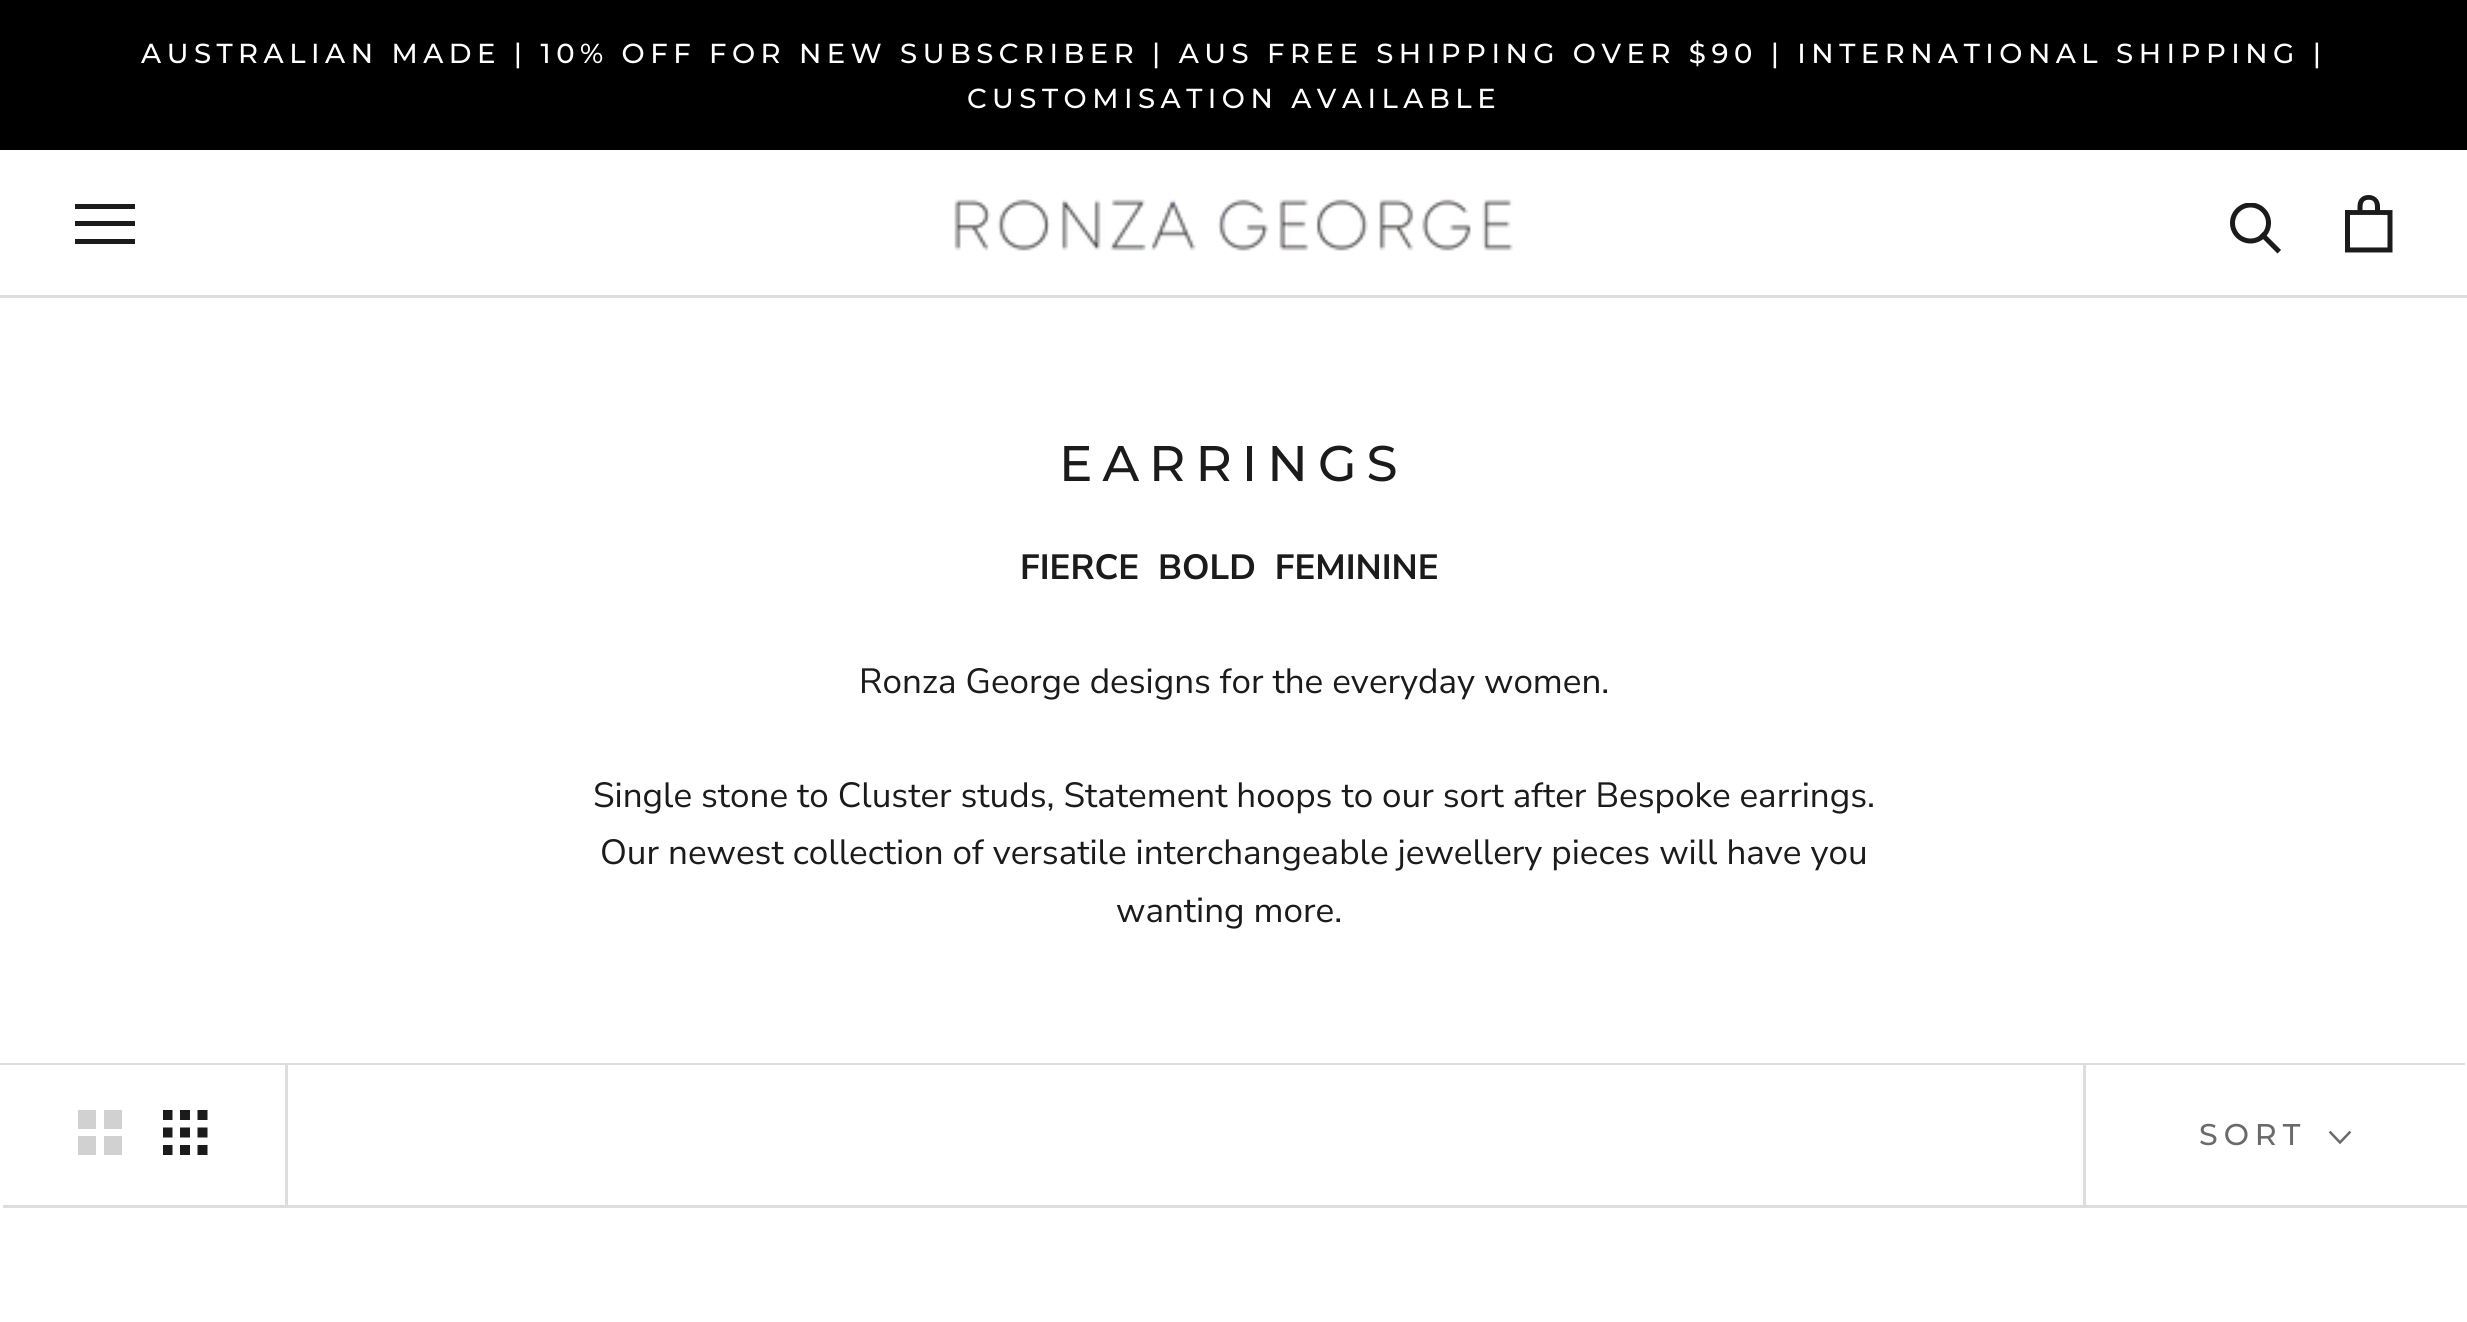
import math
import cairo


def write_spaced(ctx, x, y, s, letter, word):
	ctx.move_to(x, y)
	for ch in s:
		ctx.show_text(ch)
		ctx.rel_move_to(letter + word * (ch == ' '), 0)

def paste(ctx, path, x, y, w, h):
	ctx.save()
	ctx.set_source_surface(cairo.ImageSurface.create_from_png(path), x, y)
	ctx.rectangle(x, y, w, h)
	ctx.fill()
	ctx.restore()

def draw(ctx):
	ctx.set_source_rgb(1, 1, 1)
	ctx.paint()
	ctx.set_source_rgb(0, 0, 0)
	ctx.rectangle(0, 0, 2467, 150)
	ctx.fill()
	ctx.select_font_face('Montserrat Medium')
	ctx.set_font_size(27.5)
	ctx.set_source_rgb(1, 1, 1)
	write_spaced(ctx, 141, 63, 'AUSTRALIAN MADE | 10% OFF FOR NEW SUBSCRIBER | AUS FREE SHIPPING OVER $90 | INTERNATIONAL SHIPPING |', 5.5, 0)
	write_spaced(ctx, 967, 108, 'CUSTOMISATION AVAILABLE', 5.5, 0)
	ctx.set_source_rgb(0.867, 0.867, 0.867)
	ctx.rectangle(0, 295, 2467, 3)
	ctx.fill()
	ctx.set_source_rgb(0.11, 0.106, 0.106)
	ctx.new_path()
	ctx.move_to(75, 244)
	ctx.line_to(75, 239)
	ctx.line_to(135, 239)
	ctx.line_to(135, 244)
	ctx.close_path()
	ctx.move_to(75, 221)
	ctx.line_to(135, 221)
	ctx.line_to(135, 226)
	ctx.line_to(75, 226)
	ctx.close_path()
	ctx.move_to(75, 204)
	ctx.line_to(135, 204)
	ctx.line_to(135, 209)
	ctx.line_to(75, 209)
	ctx.close_path()
	ctx.fill()
	paste(ctx, 'media/1.png', 954, 199, 559, 52)
	ctx.new_path()
	ctx.move_to(2277.5, 250)
	ctx.line_to(2263, 235.5)
	ctx.set_line_width(5)
	ctx.set_line_cap(cairo.LINE_CAP_SQUARE)
	ctx.stroke()
	ctx.save()
	ctx.rectangle(2230, 203, 53, 52)
	ctx.clip()
	ctx.arc(2250.5, 223, 18, 0, 2 * math.pi)
	ctx.set_line_cap(cairo.LINE_CAP_BUTT)
	ctx.stroke()
	ctx.restore()
	paste(ctx, 'media/2.png', 2345, 195, 48, 58)
	ctx.set_font_size(50)
	write_spaced(ctx, 1059, 481, 'EARRINGS', 10, 0)
	ctx.select_font_face('Nunito Sans', cairo.FONT_SLANT_NORMAL, cairo.FONT_WEIGHT_BOLD)
	ctx.set_font_size(35)
	ctx.move_to(1020, 579)
	ctx.show_text('FIERCE  BOLD  FEMININE')
	ctx.select_font_face('Nunito Sans')
	for x, y, s in [
		(859, 693, 'Ronza George designs for the everyday women.'),
		(593, 807, 'Single stone to Cluster studs, Statement hoops to our sort after Bespoke earrings.'),
		(600, 864, 'Our newest collection of versatile interchangeable jewellery pieces will have you'),
		(1116, 922, 'wanting more.'),
	]:
		ctx.move_to(x, y)
		ctx.show_text(s)
	ctx.set_source_rgb(0.867, 0.867, 0.867)
	ctx.new_path()
	ctx.move_to(-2, 1063)
	ctx.line_to(-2, 1203)
	ctx.line_to(0, 1203)
	ctx.line_to(0, 1065)
	ctx.line_to(2465, 1065)
	ctx.line_to(2465, 1063)
	ctx.close_path()
	ctx.fill()
	ctx.new_path()
	ctx.move_to(3, 1205)
	ctx.line_to(3, 1208)
	ctx.line_to(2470, 1208)
	ctx.line_to(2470, 1068)
	ctx.line_to(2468, 1068)
	ctx.line_to(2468, 1205)
	ctx.close_path()
	ctx.fill()
	ctx.rectangle(285, 1065, 3, 140)
	ctx.fill()
	ctx.set_source_rgb(0.824, 0.82, 0.82)
	ctx.new_path()
	ctx.move_to(104, 1155)
	ctx.line_to(104, 1136)
	ctx.line_to(122, 1136)
	ctx.line_to(122, 1155)
	ctx.close_path()
	ctx.move_to(104, 1110)
	ctx.line_to(122, 1110)
	ctx.line_to(122, 1129)
	ctx.line_to(104, 1129)
	ctx.close_path()
	ctx.move_to(78, 1136)
	ctx.line_to(96, 1136)
	ctx.line_to(96, 1155)
	ctx.line_to(78, 1155)
	ctx.close_path()
	ctx.move_to(78, 1110)
	ctx.line_to(96, 1110)
	ctx.line_to(96, 1129)
	ctx.line_to(78, 1129)
	ctx.close_path()
	ctx.fill()
	paste(ctx, 'media/3.png', 163, 1110, 45, 45)
	ctx.set_source_rgb(0.867, 0.867, 0.867)
	ctx.rectangle(2083, 1065, 3, 140)
	ctx.fill()
	ctx.select_font_face('Montserrat Medium')
	ctx.set_font_size(30)
	ctx.set_source_rgb(0.416, 0.416, 0.416)
	write_spaced(ctx, 2199, 1145, 'SORT', 6, 0)
	ctx.new_path()
	ctx.move_to(2349.5, 1132.5)
	ctx.line_to(2340, 1142.5)
	ctx.line_to(2330.5, 1132.5)
	ctx.set_line_width(2.5)
	ctx.stroke()


surface = cairo.ImageSurface(cairo.FORMAT_RGB24, 2467, 1322)
ctx = cairo.Context(surface)
options = cairo.FontOptions()
options.set_hint_metrics(cairo.HINT_METRICS_OFF)
options.set_hint_style(cairo.HINT_STYLE_NONE)
ctx.set_font_options(options)
ctx.set_miter_limit(4)
draw(ctx)
surface.write_to_png('image.png')
